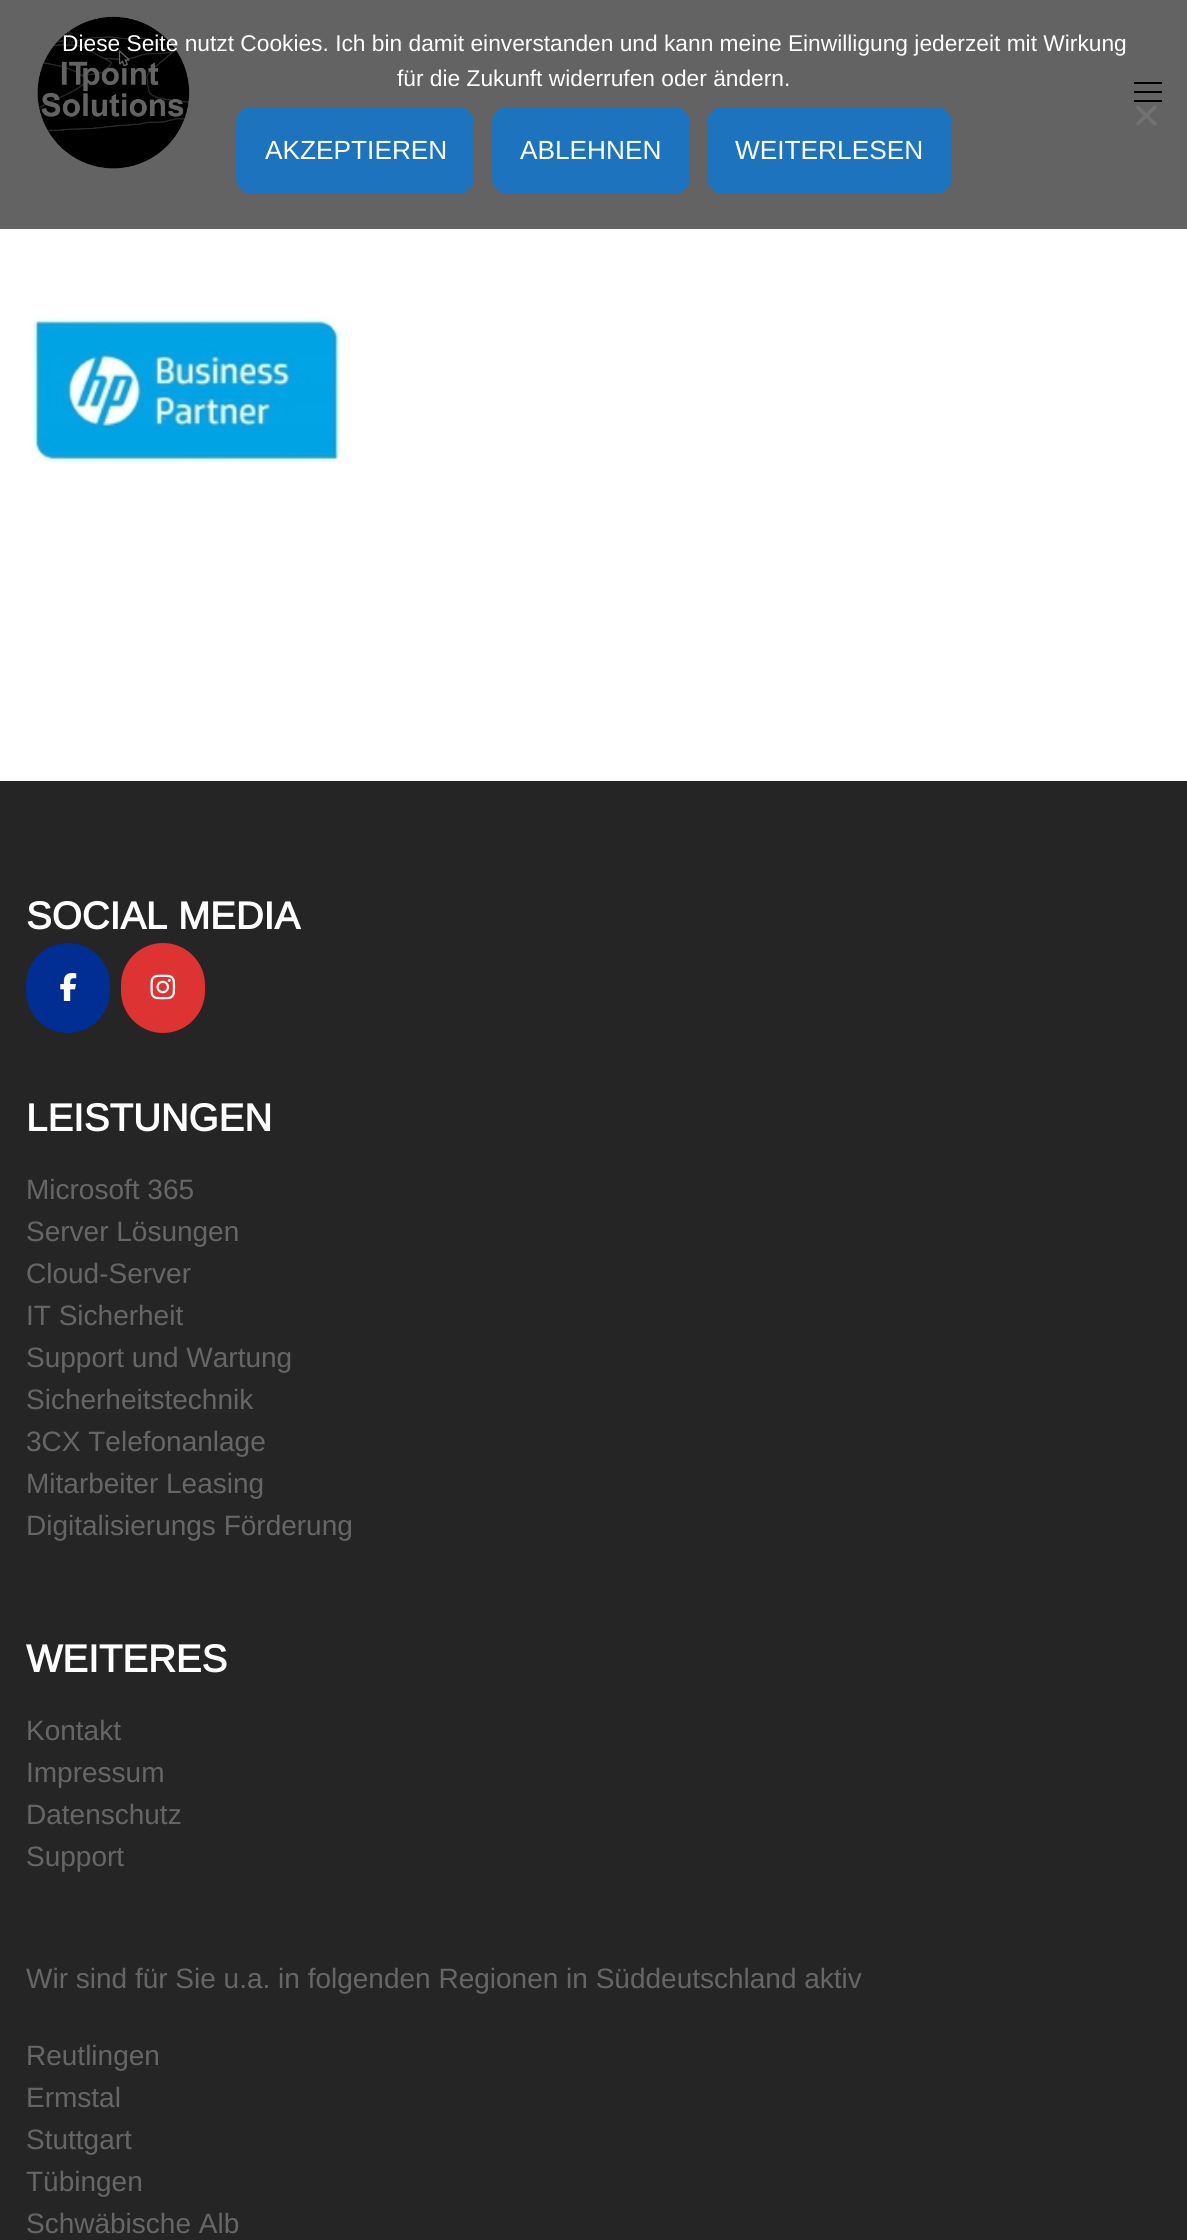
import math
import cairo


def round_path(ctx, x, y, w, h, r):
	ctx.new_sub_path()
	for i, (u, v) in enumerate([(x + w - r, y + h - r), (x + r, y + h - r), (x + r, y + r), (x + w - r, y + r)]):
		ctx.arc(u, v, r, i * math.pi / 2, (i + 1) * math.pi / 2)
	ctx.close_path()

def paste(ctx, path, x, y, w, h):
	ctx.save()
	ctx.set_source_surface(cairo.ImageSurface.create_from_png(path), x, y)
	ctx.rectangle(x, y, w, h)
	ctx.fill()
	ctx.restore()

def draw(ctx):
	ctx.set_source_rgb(1, 1, 1)
	ctx.paint()
	ctx.set_source_rgb(0.388, 0.388, 0.388)
	ctx.rectangle(0, 0, 1187, 229)
	ctx.fill()
	paste(ctx, 'media/1.png', 37, 16, 153, 153)
	ctx.select_font_face('Liberation Sans')
	ctx.set_font_size(22.75)
	ctx.set_source_rgb(1, 1, 1)
	ctx.move_to(62, 51)
	ctx.show_text('Diese Seite nutzt Cookies. Ich bin damit einverstanden und kann meine Einwilligung jederzeit mit Wirkung')
	ctx.move_to(397, 86)
	ctx.show_text('für die Zukunft widerrufen oder ändern.')
	ctx.set_source_rgb(0.447, 0.447, 0.447)
	ctx.new_path()
	ctx.move_to(1154.5, 105)
	ctx.line_to(1157, 107.5)
	ctx.line_to(1138, 126)
	ctx.line_to(1135.5, 123.5)
	ctx.close_path()
	ctx.fill()
	ctx.new_path()
	ctx.move_to(1135.5, 107.5)
	ctx.line_to(1138, 105)
	ctx.line_to(1157, 123.5)
	ctx.line_to(1154.5, 126)
	ctx.close_path()
	ctx.fill()
	ctx.set_source_rgb(0.118, 0.451, 0.745)
	round_path(ctx, 237, 108, 236, 85, 15)
	ctx.fill_preserve()
	ctx.stroke()
	ctx.set_font_size(26.25)
	ctx.set_source_rgb(1, 1, 1)
	ctx.move_to(265, 159)
	ctx.show_text('AKZEPTIEREN')
	ctx.set_source_rgb(0.118, 0.451, 0.745)
	round_path(ctx, 493, 108, 196, 85, 15)
	ctx.fill_preserve()
	ctx.stroke()
	ctx.set_source_rgb(1, 1, 1)
	ctx.move_to(520, 159)
	ctx.show_text('ABLEHNEN')
	ctx.set_source_rgb(0.118, 0.451, 0.745)
	round_path(ctx, 708, 108, 243, 85, 15)
	ctx.fill_preserve()
	ctx.stroke()
	ctx.set_source_rgb(1, 1, 1)
	ctx.move_to(735, 159)
	ctx.show_text('WEITERLESEN')
	ctx.set_source_rgb(0, 0, 0)
	ctx.rectangle(1134, 82, 28, 2)
	ctx.rectangle(1134, 91, 28, 2)
	ctx.rectangle(1134, 100, 28, 2)
	ctx.fill()
	paste(ctx, 'media/2.png', 31, 315, 310, 148)
	ctx.set_source_rgb(0.145, 0.145, 0.145)
	ctx.rectangle(0, 781, 1187, 1459)
	ctx.fill()
	ctx.select_font_face('Arimo', cairo.FONT_SLANT_NORMAL, cairo.FONT_WEIGHT_BOLD)
	ctx.set_font_size(38.5)
	ctx.set_source_rgb(1, 1, 1)
	ctx.move_to(26, 929)
	ctx.show_text('SOCIAL MEDIA')
	ctx.set_source_rgb(0, 0.18, 0.576)
	round_path(ctx, 27, 944, 82, 88, 41)
	ctx.fill_preserve()
	ctx.stroke()
	paste(ctx, 'media/3.png', 60, 973, 17, 28)
	ctx.set_source_rgb(0.867, 0.2, 0.2)
	round_path(ctx, 122, 944, 82, 88, 41)
	ctx.fill_preserve()
	ctx.stroke()
	paste(ctx, 'media/4.png', 150, 974, 25, 26)
	ctx.set_source_rgb(1, 1, 1)
	ctx.move_to(26, 1131)
	ctx.show_text('LEISTUNGEN')
	ctx.select_font_face('Arimo')
	ctx.set_font_size(28)
	ctx.set_source_rgb(0.4, 0.4, 0.4)
	for x, y, s in [
		(26, 1199, 'Microsoft 365'),
		(26, 1241, 'Server Lösungen'),
		(26, 1283, 'Cloud-Server'),
		(26, 1325, 'IT Sicherheit'),
		(26, 1367, 'Support und Wartung'),
		(26, 1409, 'Sicherheitstechnik'),
		(26, 1451, '3CX Telefonanlage'),
		(26, 1493, 'Mitarbeiter Leasing'),
		(26, 1535, 'Digitalisierungs Förderung'),
	]:
		ctx.move_to(x, y)
		ctx.show_text(s)
	ctx.select_font_face('Arimo', cairo.FONT_SLANT_NORMAL, cairo.FONT_WEIGHT_BOLD)
	ctx.set_font_size(38.5)
	ctx.set_source_rgb(1, 1, 1)
	ctx.move_to(26, 1672)
	ctx.show_text('WEITERES')
	ctx.select_font_face('Arimo')
	ctx.set_font_size(28)
	ctx.set_source_rgb(0.4, 0.4, 0.4)
	for x, y, s in [
		(26, 1740, 'Kontakt'),
		(26, 1782, 'Impressum'),
		(26, 1824, 'Datenschutz'),
		(26, 1866, 'Support'),
		(26, 1988, 'Wir sind für Sie u.a. in folgenden Regionen in Süddeutschland aktiv'),
		(26, 2065, 'Reutlingen'),
		(26, 2107, 'Ermstal'),
		(26, 2149, 'Stuttgart'),
		(26, 2191, 'Tübingen'),
		(26, 2233, 'Schwäbische Alb'),
	]:
		ctx.move_to(x, y)
		ctx.show_text(s)


surface = cairo.ImageSurface(cairo.FORMAT_RGB24, 1187, 2240)
ctx = cairo.Context(surface)
options = cairo.FontOptions()
options.set_hint_metrics(cairo.HINT_METRICS_OFF)
options.set_hint_style(cairo.HINT_STYLE_NONE)
ctx.set_font_options(options)
ctx.set_miter_limit(4)
draw(ctx)
surface.write_to_png('image.png')
